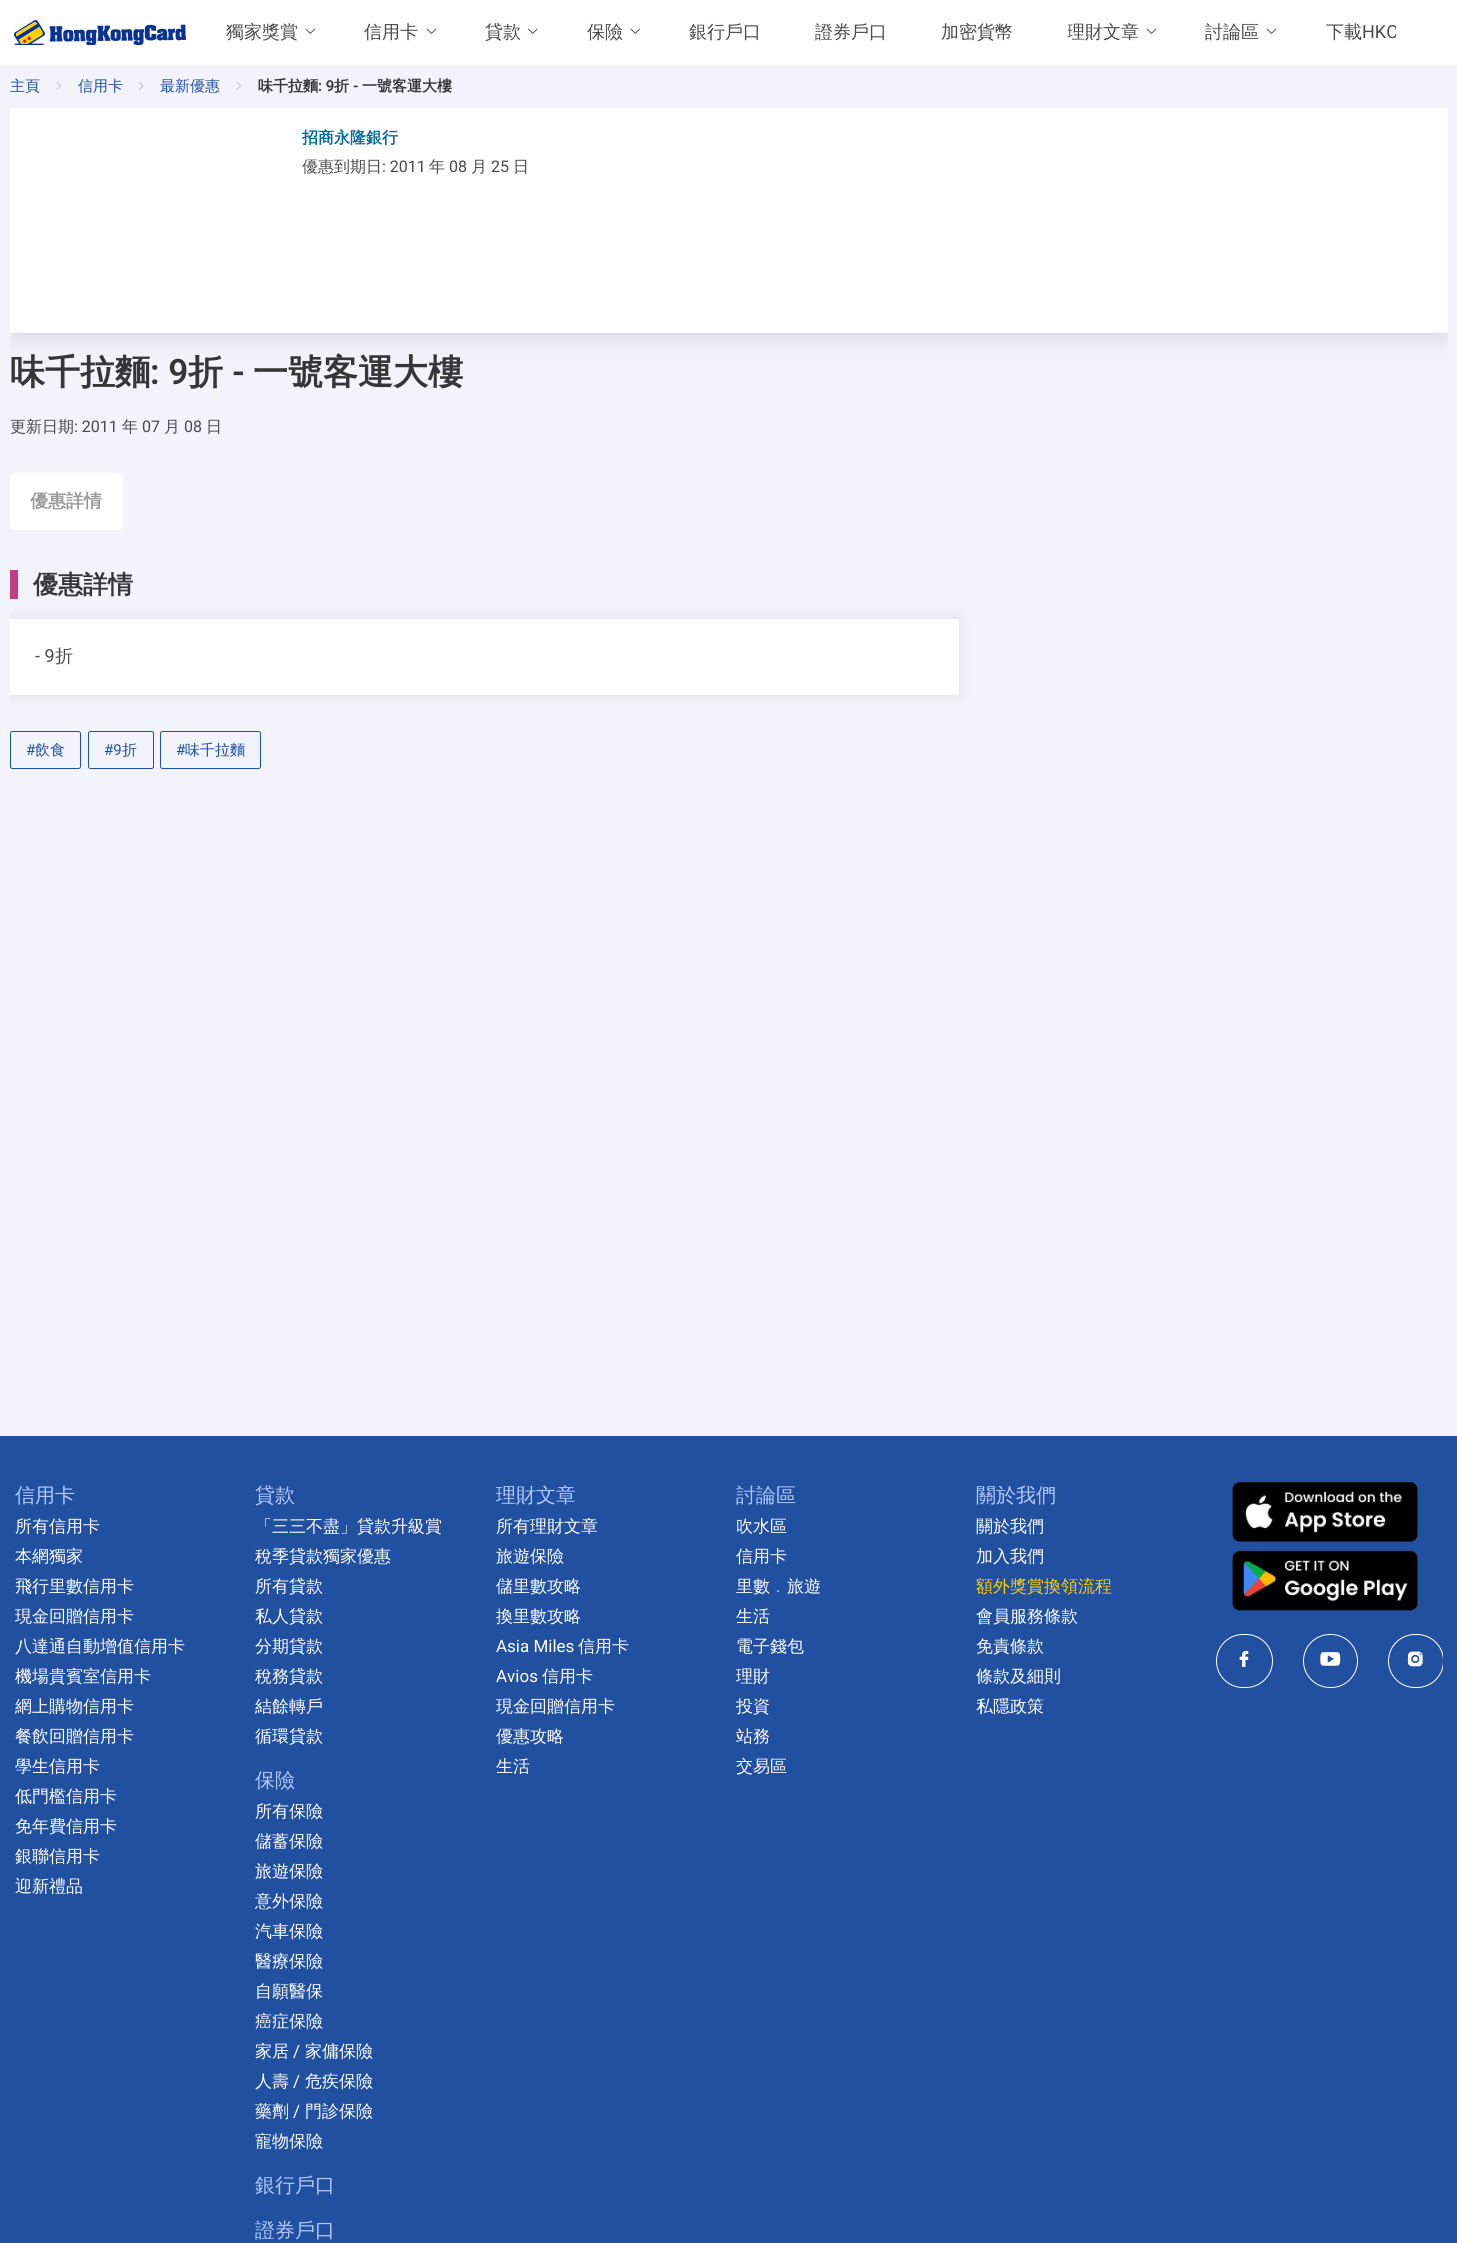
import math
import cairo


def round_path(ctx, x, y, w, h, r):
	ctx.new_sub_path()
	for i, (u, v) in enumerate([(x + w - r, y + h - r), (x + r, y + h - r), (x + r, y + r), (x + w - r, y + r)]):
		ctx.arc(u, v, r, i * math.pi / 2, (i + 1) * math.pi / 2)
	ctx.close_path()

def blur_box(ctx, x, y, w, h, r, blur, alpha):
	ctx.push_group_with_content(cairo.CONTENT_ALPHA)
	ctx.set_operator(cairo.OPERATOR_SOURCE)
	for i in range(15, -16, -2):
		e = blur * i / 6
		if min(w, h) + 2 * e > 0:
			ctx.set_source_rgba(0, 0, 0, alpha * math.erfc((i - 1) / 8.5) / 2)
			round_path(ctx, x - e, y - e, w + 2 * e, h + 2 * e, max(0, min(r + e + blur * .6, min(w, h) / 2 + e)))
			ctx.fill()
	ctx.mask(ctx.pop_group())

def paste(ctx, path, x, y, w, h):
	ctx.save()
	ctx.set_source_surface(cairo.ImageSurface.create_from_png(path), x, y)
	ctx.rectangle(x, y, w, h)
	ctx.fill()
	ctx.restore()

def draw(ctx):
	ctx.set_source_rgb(0.949, 0.953, 0.984)
	ctx.paint()
	ctx.set_source_rgb(1, 1, 1)
	ctx.rectangle(0, 0, 1457, 65)
	ctx.fill()
	paste(ctx, 'media/1.png', 14, 20, 172, 25)
	ctx.select_font_face('WenQuanYi Zen Hei Medium')
	ctx.set_font_size(18)
	ctx.set_source_rgb(0.29, 0.29, 0.29)
	ctx.move_to(226, 38)
	ctx.show_text('獨家獎賞')
	paste(ctx, 'media/2.png', 305, 28, 10, 6)
	ctx.move_to(364, 38)
	ctx.show_text('信用卡')
	paste(ctx, 'media/3.png', 426, 28, 11, 6)
	ctx.move_to(485, 38)
	ctx.show_text('貸款')
	paste(ctx, 'media/4.png', 528, 28, 10, 6)
	ctx.move_to(587, 38)
	ctx.show_text('保險')
	paste(ctx, 'media/2.png', 630, 28, 10, 6)
	for x, y, s in [
		(689, 38, '銀行戶口'),
		(815, 38, '證券戶口'),
		(941, 38, '加密貨幣'),
	]:
		ctx.move_to(x, y)
		ctx.show_text(s)
	ctx.save()
	ctx.rectangle(1068, 19, 71, 27)
	ctx.clip()
	ctx.move_to(1067, 38)
	ctx.show_text('理財文章')
	ctx.restore()
	paste(ctx, 'media/3.png', 1146, 28, 11, 6)
	ctx.move_to(1205, 38)
	ctx.show_text('討論區')
	paste(ctx, 'media/3.png', 1266, 28, 11, 6)
	ctx.move_to(1326, 38)
	ctx.show_text('下載')
	ctx.save()
	ctx.rectangle(206, 0, 1190, 65)
	ctx.clip()
	ctx.select_font_face('Roboto')
	ctx.move_to(1362, 38)
	ctx.show_text('HKC')
	ctx.restore()
	ctx.set_font_size(15)
	ctx.set_source_rgb(0.129, 0.314, 0.631)
	ctx.move_to(10, 91)
	ctx.show_text('主頁')
	paste(ctx, 'media/5.png', 56, 82, 5, 8)
	ctx.move_to(78, 91)
	ctx.show_text('信用卡')
	paste(ctx, 'media/6.png', 139, 82, 5, 8)
	ctx.move_to(160, 91)
	ctx.show_text('最新優惠')
	paste(ctx, 'media/5.png', 236, 82, 5, 8)
	ctx.select_font_face('WenQuanYi Zen Hei', cairo.FONT_SLANT_NORMAL, cairo.FONT_WEIGHT_BOLD)
	ctx.set_source_rgb(0.212, 0.212, 0.212)
	ctx.move_to(258, 91)
	ctx.show_text('味千拉麵')
	ctx.select_font_face('Roboto SemiBold')
	ctx.move_to(318, 91)
	ctx.show_text(': 9')
	ctx.select_font_face('WenQuanYi Zen Hei', cairo.FONT_SLANT_NORMAL, cairo.FONT_WEIGHT_BOLD)
	ctx.move_to(334, 91)
	ctx.show_text('折')
	ctx.select_font_face('Roboto SemiBold')
	ctx.move_to(353, 91)
	ctx.show_text('-')
	ctx.select_font_face('WenQuanYi Zen Hei', cairo.FONT_SLANT_NORMAL, cairo.FONT_WEIGHT_BOLD)
	ctx.move_to(362, 91)
	ctx.show_text('一號客運大樓')
	ctx.save()
	ctx.rectangle(10, 108, 1438, 1156)
	ctx.clip()
	ctx.rectangle(9.5, 106.5, 1439, 227)
	ctx.set_source_rgb(0.929, 0.933, 0.965)
	ctx.set_line_width(1)
	ctx.stroke()
	ctx.restore()
	ctx.save()
	ctx.rectangle(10, 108, 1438, 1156)
	ctx.clip()
	ctx.set_source_rgb(0.039, 0.039, 0.039)
	blur_box(ctx, 13, 120, 1432, 220, 0, 10, 0.1)
	ctx.restore()
	ctx.set_source_rgb(1, 1, 1)
	ctx.rectangle(10, 108, 1438, 225)
	ctx.fill()
	ctx.set_font_size(16)
	ctx.set_source_rgb(0.027, 0.42, 0.612)
	ctx.move_to(302, 143)
	ctx.show_text('招商永隆銀行')
	ctx.select_font_face('WenQuanYi Zen Hei Medium')
	ctx.set_source_rgb(0.29, 0.29, 0.29)
	ctx.move_to(302, 172)
	ctx.show_text('優惠到期日')
	ctx.select_font_face('Roboto')
	ctx.move_to(382, 172)
	ctx.show_text(': 2011')
	ctx.select_font_face('WenQuanYi Zen Hei Medium')
	ctx.move_to(429, 172)
	ctx.show_text('年')
	ctx.select_font_face('Roboto')
	ctx.move_to(449, 172)
	ctx.show_text('08')
	ctx.select_font_face('WenQuanYi Zen Hei Medium')
	ctx.move_to(471, 172)
	ctx.show_text('月')
	ctx.select_font_face('Roboto')
	ctx.move_to(491, 172)
	ctx.show_text('25')
	ctx.select_font_face('WenQuanYi Zen Hei Medium')
	ctx.move_to(513, 172)
	ctx.show_text('日')
	ctx.select_font_face('WenQuanYi Zen Hei', cairo.FONT_SLANT_NORMAL, cairo.FONT_WEIGHT_BOLD)
	ctx.set_font_size(35)
	ctx.set_source_rgb(0.212, 0.212, 0.212)
	ctx.move_to(10, 384)
	ctx.show_text('味千拉麵')
	ctx.select_font_face('Roboto SemiBold')
	ctx.move_to(150, 384)
	ctx.show_text(': 9')
	ctx.select_font_face('WenQuanYi Zen Hei', cairo.FONT_SLANT_NORMAL, cairo.FONT_WEIGHT_BOLD)
	ctx.move_to(188, 384)
	ctx.show_text('折')
	ctx.select_font_face('Roboto SemiBold')
	ctx.move_to(232, 384)
	ctx.show_text('-')
	ctx.select_font_face('WenQuanYi Zen Hei', cairo.FONT_SLANT_NORMAL, cairo.FONT_WEIGHT_BOLD)
	ctx.move_to(253, 384)
	ctx.show_text('一號客運大樓')
	ctx.select_font_face('WenQuanYi Zen Hei Medium')
	ctx.set_font_size(16)
	ctx.set_source_rgb(0.29, 0.29, 0.29)
	ctx.move_to(10, 432)
	ctx.show_text('更新日期')
	ctx.select_font_face('Roboto')
	ctx.move_to(74, 432)
	ctx.show_text(': 2011')
	ctx.select_font_face('WenQuanYi Zen Hei Medium')
	ctx.move_to(122, 432)
	ctx.show_text('年')
	ctx.select_font_face('Roboto')
	ctx.move_to(142, 432)
	ctx.show_text('07')
	ctx.select_font_face('WenQuanYi Zen Hei Medium')
	ctx.move_to(164, 432)
	ctx.show_text('月')
	ctx.select_font_face('Roboto')
	ctx.move_to(184, 432)
	ctx.show_text('08')
	ctx.select_font_face('WenQuanYi Zen Hei Medium')
	ctx.move_to(206, 432)
	ctx.show_text('日')
	ctx.set_source_rgb(1, 1, 1)
	round_path(ctx, 10, 473, 113, 57, 5)
	ctx.fill()
	ctx.select_font_face('WenQuanYi Zen Hei', cairo.FONT_SLANT_NORMAL, cairo.FONT_WEIGHT_BOLD)
	ctx.set_font_size(18)
	ctx.set_source_rgb(0.6, 0.6, 0.6)
	ctx.move_to(30, 507)
	ctx.show_text('優惠詳情')
	ctx.set_source_rgb(0.776, 0.239, 0.506)
	ctx.rectangle(10, 570, 8, 29)
	ctx.fill()
	ctx.set_font_size(25)
	ctx.set_source_rgb(0.212, 0.212, 0.212)
	ctx.move_to(33, 593)
	ctx.show_text('優惠詳情')
	ctx.save()
	ctx.rectangle(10, 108, 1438, 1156)
	ctx.clip()
	ctx.set_source_rgb(0, 0, 0)
	blur_box(ctx, 10, 619, 949, 76, 0, 8, 0.08)
	ctx.restore()
	ctx.set_source_rgb(1, 1, 1)
	ctx.rectangle(10, 619, 949, 76)
	ctx.fill()
	ctx.select_font_face('Roboto')
	ctx.set_font_size(18)
	ctx.set_source_rgb(0.29, 0.29, 0.29)
	ctx.move_to(35, 662)
	ctx.show_text('- 9')
	ctx.select_font_face('WenQuanYi Zen Hei Medium')
	ctx.move_to(55, 662)
	ctx.show_text('折')
	round_path(ctx, 10.5, 731.5, 70, 37, 2)
	ctx.set_source_rgb(0.129, 0.314, 0.631)
	ctx.set_line_width(1)
	ctx.stroke()
	ctx.select_font_face('Roboto')
	ctx.set_font_size(15)
	ctx.move_to(26, 755)
	ctx.show_text('#')
	ctx.select_font_face('WenQuanYi Zen Hei Medium')
	ctx.move_to(35, 755)
	ctx.show_text('飲食')
	round_path(ctx, 88.5, 731.5, 65, 37, 2)
	ctx.stroke()
	ctx.select_font_face('Roboto')
	ctx.move_to(104, 755)
	ctx.show_text('#9')
	ctx.select_font_face('WenQuanYi Zen Hei Medium')
	ctx.move_to(122, 755)
	ctx.show_text('折')
	round_path(ctx, 160.5, 731.5, 100, 37, 2)
	ctx.stroke()
	ctx.select_font_face('Roboto')
	ctx.move_to(176, 755)
	ctx.show_text('#')
	ctx.select_font_face('WenQuanYi Zen Hei Medium')
	ctx.move_to(185, 755)
	ctx.show_text('味千拉麵')
	ctx.rectangle(0, 1436, 1457, 807)
	ctx.fill()
	ctx.set_font_size(20)
	ctx.set_source_rgb(0.702, 0.788, 1)
	ctx.move_to(15, 1502)
	ctx.show_text('信用卡')
	ctx.set_font_size(17)
	ctx.set_source_rgb(1, 1, 1)
	for x, y, s in [
		(15, 1532, '所有信用卡'),
		(15, 1562, '本網獨家'),
		(15, 1592, '飛行里數信用卡'),
		(15, 1622, '現金回贈信用卡'),
		(15, 1652, '八達通自動增值信用卡'),
		(15, 1682, '機場貴賓室信用卡'),
		(15, 1712, '網上購物信用卡'),
		(15, 1742, '餐飲回贈信用卡'),
		(15, 1772, '學生信用卡'),
		(15, 1802, '低門檻信用卡'),
		(15, 1832, '免年費信用卡'),
		(15, 1862, '銀聯信用卡'),
		(15, 1892, '迎新禮品'),
	]:
		ctx.move_to(x, y)
		ctx.show_text(s)
	ctx.set_font_size(20)
	ctx.set_source_rgb(0.702, 0.788, 1)
	ctx.move_to(255, 1502)
	ctx.show_text('貸款')
	ctx.set_font_size(17)
	ctx.set_source_rgb(1, 1, 1)
	for x, y, s in [
		(255, 1532, '「三三不盡」貸款升級賞'),
		(255, 1562, '稅季貸款獨家優惠'),
		(255, 1592, '所有貸款'),
		(255, 1622, '私人貸款'),
		(255, 1652, '分期貸款'),
		(255, 1682, '稅務貸款'),
		(255, 1712, '結餘轉戶'),
		(255, 1742, '循環貸款'),
	]:
		ctx.move_to(x, y)
		ctx.show_text(s)
	ctx.set_font_size(20)
	ctx.set_source_rgb(0.702, 0.788, 1)
	ctx.move_to(255, 1787)
	ctx.show_text('保險')
	ctx.set_font_size(17)
	ctx.set_source_rgb(1, 1, 1)
	for x, y, s in [
		(255, 1817, '所有保險'),
		(255, 1847, '儲蓄保險'),
		(255, 1877, '旅遊保險'),
		(255, 1907, '意外保險'),
		(255, 1937, '汽車保險'),
		(255, 1967, '醫療保險'),
		(255, 1997, '自願醫保'),
		(255, 2027, '癌症保險'),
		(255, 2057, '家居'),
	]:
		ctx.move_to(x, y)
		ctx.show_text(s)
	ctx.select_font_face('Roboto')
	ctx.move_to(293, 2057)
	ctx.show_text('/')
	ctx.select_font_face('WenQuanYi Zen Hei Medium')
	ctx.move_to(305, 2057)
	ctx.show_text('家傭保險')
	ctx.move_to(255, 2087)
	ctx.show_text('人壽')
	ctx.select_font_face('Roboto')
	ctx.move_to(293, 2087)
	ctx.show_text('/')
	ctx.select_font_face('WenQuanYi Zen Hei Medium')
	ctx.move_to(305, 2087)
	ctx.show_text('危疾保險')
	ctx.move_to(255, 2117)
	ctx.show_text('藥劑')
	ctx.select_font_face('Roboto')
	ctx.move_to(293, 2117)
	ctx.show_text('/')
	ctx.select_font_face('WenQuanYi Zen Hei Medium')
	ctx.move_to(305, 2117)
	ctx.show_text('門診保險')
	ctx.move_to(255, 2147)
	ctx.show_text('寵物保險')
	ctx.set_font_size(20)
	ctx.set_source_rgb(0.702, 0.788, 1)
	for x, y, s in [
		(255, 2192, '銀行戶口'),
		(255, 2237, '證券戶口'),
		(496, 1502, '理財文章'),
	]:
		ctx.move_to(x, y)
		ctx.show_text(s)
	ctx.set_font_size(17)
	ctx.set_source_rgb(1, 1, 1)
	for x, y, s in [
		(496, 1532, '所有理財文章'),
		(496, 1562, '旅遊保險'),
		(496, 1592, '儲里數攻略'),
		(496, 1622, '換里數攻略'),
	]:
		ctx.move_to(x, y)
		ctx.show_text(s)
	ctx.select_font_face('Roboto')
	ctx.move_to(496, 1652)
	ctx.show_text('Asia Miles')
	ctx.select_font_face('WenQuanYi Zen Hei Medium')
	ctx.move_to(578, 1652)
	ctx.show_text('信用卡')
	ctx.select_font_face('Roboto')
	ctx.move_to(496, 1682)
	ctx.show_text('Avios')
	ctx.select_font_face('WenQuanYi Zen Hei Medium')
	for x, y, s in [
		(542, 1682, '信用卡'),
		(496, 1712, '現金回贈信用卡'),
		(496, 1742, '優惠攻略'),
		(496, 1772, '生活'),
	]:
		ctx.move_to(x, y)
		ctx.show_text(s)
	ctx.set_font_size(20)
	ctx.set_source_rgb(0.702, 0.788, 1)
	ctx.move_to(736, 1502)
	ctx.show_text('討論區')
	ctx.set_font_size(17)
	ctx.set_source_rgb(1, 1, 1)
	for x, y, s in [
		(736, 1532, '吹水區'),
		(736, 1562, '信用卡'),
		(736, 1592, '里數﹒旅遊'),
		(736, 1622, '生活'),
		(736, 1652, '電子錢包'),
		(736, 1682, '理財'),
		(736, 1712, '投資'),
		(736, 1742, '站務'),
		(736, 1772, '交易區'),
	]:
		ctx.move_to(x, y)
		ctx.show_text(s)
	ctx.set_font_size(20)
	ctx.set_source_rgb(0.702, 0.788, 1)
	ctx.move_to(976, 1502)
	ctx.show_text('關於我們')
	ctx.set_font_size(17)
	ctx.set_source_rgb(1, 1, 1)
	ctx.move_to(976, 1532)
	ctx.show_text('關於我們')
	ctx.move_to(976, 1562)
	ctx.show_text('加入我們')
	ctx.set_source_rgb(0.98, 0.816, 0)
	ctx.move_to(976, 1592)
	ctx.show_text('額外獎賞換領流程')
	ctx.set_source_rgb(1, 1, 1)
	for x, y, s in [
		(976, 1622, '會員服務條款'),
		(976, 1652, '免責條款'),
		(976, 1682, '條款及細則'),
		(976, 1712, '私隱政策'),
	]:
		ctx.move_to(x, y)
		ctx.show_text(s)
	paste(ctx, 'media/7.png', 1232, 1481, 186, 62)
	paste(ctx, 'media/8.png', 1232, 1550, 186, 61)
	round_path(ctx, 1216.5, 1634.5, 56, 53, 26.5)
	ctx.stroke()
	paste(ctx, 'media/9.png', 1239, 1650, 10, 17)
	round_path(ctx, 1303.5, 1634.5, 54, 53, 26.5)
	ctx.stroke()
	paste(ctx, 'media/10.png', 1320, 1652, 21, 14)
	ctx.save()
	ctx.rectangle(15, 1466, 1428, 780)
	ctx.clip()
	round_path(ctx, 1388.5, 1634.5, 55, 53, 26.5)
	ctx.stroke()
	ctx.restore()
	paste(ctx, 'media/11.png', 1407, 1651, 16, 16)


surface = cairo.ImageSurface(cairo.FORMAT_RGB24, 1457, 2243)
ctx = cairo.Context(surface)
options = cairo.FontOptions()
options.set_hint_metrics(cairo.HINT_METRICS_OFF)
options.set_hint_style(cairo.HINT_STYLE_NONE)
ctx.set_font_options(options)
ctx.set_miter_limit(4)
draw(ctx)
surface.write_to_png('image.png')
